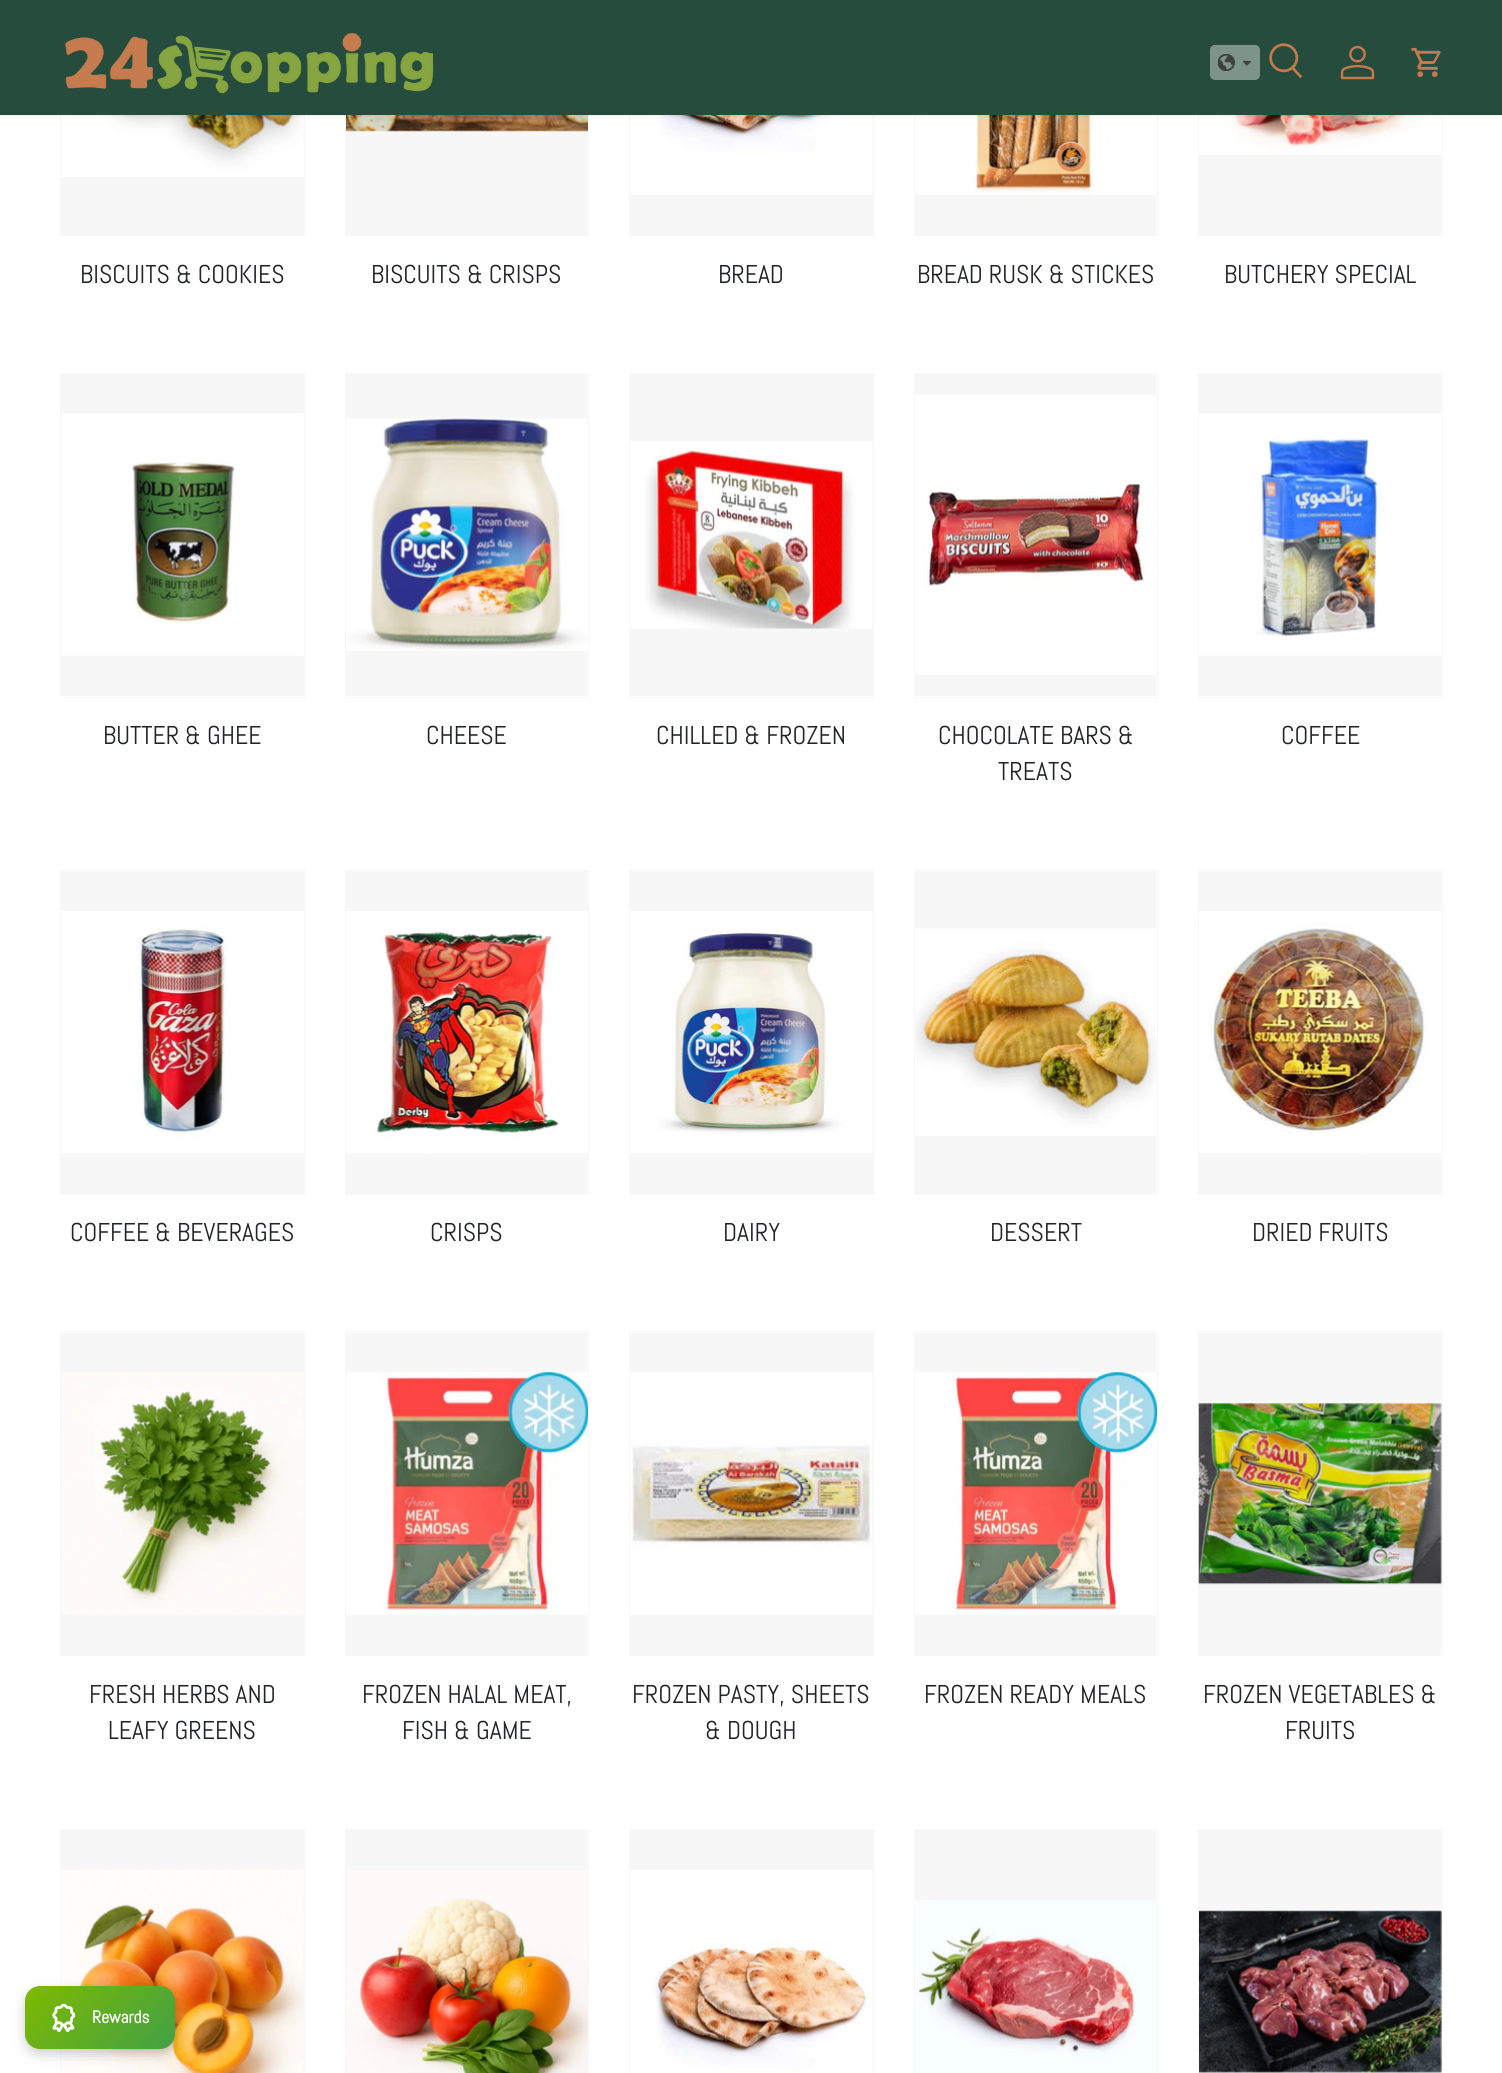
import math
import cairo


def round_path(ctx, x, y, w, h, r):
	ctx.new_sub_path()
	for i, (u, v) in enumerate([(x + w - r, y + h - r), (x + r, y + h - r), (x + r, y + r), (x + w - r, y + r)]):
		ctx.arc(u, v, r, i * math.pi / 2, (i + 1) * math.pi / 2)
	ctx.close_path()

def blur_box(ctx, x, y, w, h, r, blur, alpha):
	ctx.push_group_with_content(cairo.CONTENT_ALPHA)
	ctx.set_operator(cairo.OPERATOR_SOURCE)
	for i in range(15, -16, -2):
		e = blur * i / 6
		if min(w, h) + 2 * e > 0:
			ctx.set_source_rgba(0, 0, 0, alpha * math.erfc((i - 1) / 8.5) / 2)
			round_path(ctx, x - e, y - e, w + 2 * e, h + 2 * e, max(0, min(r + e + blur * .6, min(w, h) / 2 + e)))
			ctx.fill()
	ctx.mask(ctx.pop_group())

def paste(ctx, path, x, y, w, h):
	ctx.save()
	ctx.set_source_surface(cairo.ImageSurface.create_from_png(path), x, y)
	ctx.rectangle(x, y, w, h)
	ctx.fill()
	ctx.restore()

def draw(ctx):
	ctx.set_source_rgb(1, 1, 1)
	ctx.paint()
	ctx.rectangle(60.5, -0.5, 244, 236)
	ctx.set_source_rgb(0.965, 0.965, 0.965)
	ctx.set_line_width(1)
	ctx.stroke()
	ctx.rectangle(61, 115, 243, 120)
	ctx.fill()
	paste(ctx, 'media/7.png', 61, 115, 243, 62)
	ctx.rectangle(345.5, -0.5, 243, 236)
	ctx.stroke()
	ctx.rectangle(346, 130, 242, 105)
	ctx.fill()
	paste(ctx, 'media/8.png', 346, 115, 242, 17)
	ctx.rectangle(629.5, -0.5, 244, 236)
	ctx.stroke()
	ctx.rectangle(630, 115, 243, 120)
	ctx.fill()
	paste(ctx, 'media/9.png', 630, 115, 243, 80)
	ctx.rectangle(914.5, -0.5, 243, 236)
	ctx.stroke()
	ctx.rectangle(915, 194, 241, 41)
	ctx.fill()
	paste(ctx, 'media/10.png', 915, 115, 241, 80)
	ctx.rectangle(1198.5, -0.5, 244, 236)
	ctx.stroke()
	ctx.rectangle(1199, 115, 242, 120)
	ctx.fill()
	paste(ctx, 'media/11.png', 1199, 115, 242, 40)
	ctx.set_source_rgb(0, 0, 0)
	blur_box(ctx, -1, -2, 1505, 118, 0, 2, 0.08)
	ctx.set_source_rgb(0.145, 0.298, 0.235)
	ctx.rectangle(0, 0, 1502, 115)
	ctx.fill()
	paste(ctx, 'media/1.png', 65, 33, 369, 61)
	ctx.set_source_rgb(0.486, 0.58, 0.541)
	round_path(ctx, 1210, 45, 50, 35, 5)
	ctx.fill()
	paste(ctx, 'media/2.png', 1218, 54, 17, 17)
	paste(ctx, 'media/3.png', 1243, 60, 8, 6)
	paste(ctx, 'media/4.png', 1269, 43, 34, 36)
	paste(ctx, 'media/5.png', 1340, 45, 35, 35)
	paste(ctx, 'media/6.png', 1411, 47, 30, 31)
	ctx.select_font_face('Abel')
	ctx.set_font_size(25.75)
	ctx.set_source_rgb(0.129, 0.137, 0.149)
	for x, y, s in [
		(80, 283, 'BISCUITS & COOKIES'),
		(371, 283, 'BISCUITS & CRISPS'),
		(718, 283, 'BREAD'),
		(917, 283, 'BREAD RUSK & STICKES'),
		(1224, 283, 'BUTCHERY SPECIAL'),
	]:
		ctx.move_to(x, y)
		ctx.show_text(s)
	ctx.rectangle(60.5, 373.5, 244, 324)
	ctx.set_source_rgb(0.965, 0.965, 0.965)
	ctx.stroke()
	ctx.rectangle(61, 374, 243, 322)
	ctx.fill()
	paste(ctx, 'media/12.png', 61, 413, 243, 243)
	ctx.set_source_rgb(0.129, 0.137, 0.149)
	ctx.move_to(103, 744)
	ctx.show_text('BUTTER & GHEE')
	ctx.rectangle(345.5, 373.5, 243, 324)
	ctx.set_source_rgb(0.965, 0.965, 0.965)
	ctx.stroke()
	ctx.rectangle(346, 374, 242, 322)
	ctx.fill()
	paste(ctx, 'media/13.png', 346, 418, 242, 233)
	ctx.set_source_rgb(0.129, 0.137, 0.149)
	ctx.move_to(426, 744)
	ctx.show_text('CHEESE')
	ctx.rectangle(629.5, 373.5, 244, 324)
	ctx.set_source_rgb(0.965, 0.965, 0.965)
	ctx.stroke()
	ctx.rectangle(630, 374, 243, 322)
	ctx.fill()
	paste(ctx, 'media/14.png', 630, 441, 243, 188)
	ctx.set_source_rgb(0.129, 0.137, 0.149)
	ctx.move_to(656, 744)
	ctx.show_text('CHILLED & FROZEN')
	ctx.rectangle(914.5, 373.5, 243, 324)
	ctx.set_source_rgb(0.965, 0.965, 0.965)
	ctx.stroke()
	ctx.rectangle(915, 374, 241, 322)
	ctx.fill()
	paste(ctx, 'media/15.png', 915, 395, 241, 280)
	ctx.set_source_rgb(0.129, 0.137, 0.149)
	ctx.move_to(938, 744)
	ctx.show_text('CHOCOLATE BARS &')
	ctx.move_to(998, 780)
	ctx.show_text('TREATS')
	ctx.rectangle(1198.5, 373.5, 244, 324)
	ctx.set_source_rgb(0.965, 0.965, 0.965)
	ctx.stroke()
	ctx.rectangle(1199, 374, 242, 322)
	ctx.fill()
	paste(ctx, 'media/16.png', 1199, 413, 242, 243)
	ctx.set_source_rgb(0.129, 0.137, 0.149)
	ctx.move_to(1281, 744)
	ctx.show_text('COFFEE')
	ctx.rectangle(60.5, 870.5, 244, 324)
	ctx.set_source_rgb(0.965, 0.965, 0.965)
	ctx.stroke()
	ctx.rectangle(61, 871, 243, 323)
	ctx.fill()
	paste(ctx, 'media/17.png', 61, 911, 243, 243)
	ctx.set_source_rgb(0.129, 0.137, 0.149)
	ctx.move_to(70, 1241)
	ctx.show_text('COFFEE & BEVERAGES')
	ctx.rectangle(345.5, 870.5, 243, 324)
	ctx.set_source_rgb(0.965, 0.965, 0.965)
	ctx.stroke()
	ctx.rectangle(346, 871, 242, 323)
	ctx.fill()
	paste(ctx, 'media/18.png', 346, 911, 242, 243)
	ctx.set_source_rgb(0.129, 0.137, 0.149)
	ctx.move_to(430, 1241)
	ctx.show_text('CRISPS')
	ctx.rectangle(629.5, 870.5, 244, 324)
	ctx.set_source_rgb(0.965, 0.965, 0.965)
	ctx.stroke()
	ctx.rectangle(630, 871, 243, 323)
	ctx.fill()
	paste(ctx, 'media/19.png', 630, 911, 243, 243)
	ctx.set_source_rgb(0.129, 0.137, 0.149)
	ctx.move_to(723, 1241)
	ctx.show_text('DAIRY')
	ctx.rectangle(914.5, 870.5, 243, 324)
	ctx.set_source_rgb(0.965, 0.965, 0.965)
	ctx.stroke()
	ctx.rectangle(915, 871, 241, 323)
	ctx.fill()
	paste(ctx, 'media/20.png', 915, 928, 242, 208)
	ctx.set_source_rgb(0.129, 0.137, 0.149)
	ctx.move_to(990, 1241)
	ctx.show_text('DESSERT')
	ctx.rectangle(1198.5, 870.5, 244, 324)
	ctx.set_source_rgb(0.965, 0.965, 0.965)
	ctx.stroke()
	ctx.rectangle(1199, 871, 242, 323)
	ctx.fill()
	paste(ctx, 'media/21.png', 1199, 911, 242, 243)
	ctx.set_source_rgb(0.129, 0.137, 0.149)
	ctx.move_to(1252, 1241)
	ctx.show_text('DRIED FRUITS')
	ctx.rectangle(60.5, 1331.5, 244, 324)
	ctx.set_source_rgb(0.965, 0.965, 0.965)
	ctx.stroke()
	ctx.rectangle(61, 1333, 243, 322)
	ctx.fill()
	paste(ctx, 'media/22.png', 61, 1372, 243, 243)
	ctx.set_source_rgb(0.129, 0.137, 0.149)
	ctx.move_to(89, 1703)
	ctx.show_text('FRESH HERBS AND')
	ctx.move_to(108, 1739)
	ctx.show_text('LEAFY GREENS')
	ctx.rectangle(345.5, 1331.5, 243, 324)
	ctx.set_source_rgb(0.965, 0.965, 0.965)
	ctx.stroke()
	ctx.rectangle(346, 1333, 242, 322)
	ctx.fill()
	paste(ctx, 'media/23.png', 346, 1372, 242, 243)
	ctx.set_source_rgb(0.129, 0.137, 0.149)
	ctx.move_to(362, 1703)
	ctx.show_text('FROZEN HALAL MEAT,')
	ctx.move_to(402, 1739)
	ctx.show_text('FISH & GAME')
	ctx.rectangle(629.5, 1331.5, 244, 324)
	ctx.set_source_rgb(0.965, 0.965, 0.965)
	ctx.stroke()
	ctx.rectangle(630, 1333, 243, 322)
	ctx.fill()
	paste(ctx, 'media/24.png', 630, 1372, 243, 243)
	ctx.set_source_rgb(0.129, 0.137, 0.149)
	ctx.move_to(632, 1703)
	ctx.show_text('FROZEN PASTY, SHEETS')
	ctx.move_to(705, 1739)
	ctx.show_text('& DOUGH')
	ctx.rectangle(914.5, 1331.5, 243, 324)
	ctx.set_source_rgb(0.965, 0.965, 0.965)
	ctx.stroke()
	ctx.rectangle(915, 1333, 241, 322)
	ctx.fill()
	paste(ctx, 'media/25.png', 915, 1372, 242, 243)
	ctx.set_source_rgb(0.129, 0.137, 0.149)
	ctx.move_to(924, 1703)
	ctx.show_text('FROZEN READY MEALS')
	ctx.rectangle(1198.5, 1331.5, 244, 324)
	ctx.set_source_rgb(0.965, 0.965, 0.965)
	ctx.stroke()
	ctx.rectangle(1199, 1333, 242, 322)
	ctx.fill()
	paste(ctx, 'media/26.png', 1198, 1403, 244, 182)
	ctx.set_source_rgb(0.129, 0.137, 0.149)
	ctx.move_to(1203, 1703)
	ctx.show_text('FROZEN VEGETABLES &')
	ctx.move_to(1285, 1739)
	ctx.show_text('FRUITS')
	ctx.rectangle(60.5, 1829.5, 244, 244)
	ctx.set_source_rgb(0.965, 0.965, 0.965)
	ctx.stroke()
	ctx.rectangle(61, 1830, 243, 243)
	ctx.fill()
	paste(ctx, 'media/27.png', 61, 1870, 243, 203)
	ctx.rectangle(345.5, 1829.5, 243, 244)
	ctx.stroke()
	ctx.rectangle(346, 1830, 242, 40)
	ctx.fill()
	paste(ctx, 'media/28.png', 346, 1870, 242, 203)
	ctx.rectangle(629.5, 1829.5, 244, 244)
	ctx.stroke()
	ctx.rectangle(630, 1830, 243, 243)
	ctx.fill()
	paste(ctx, 'media/29.png', 630, 1870, 243, 203)
	ctx.rectangle(914.5, 1829.5, 243, 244)
	ctx.stroke()
	ctx.rectangle(915, 1830, 241, 70)
	ctx.fill()
	paste(ctx, 'media/30.png', 915, 1900, 242, 173)
	ctx.rectangle(1198.5, 1829.5, 244, 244)
	ctx.stroke()
	ctx.rectangle(1199, 1830, 242, 243)
	ctx.fill()
	paste(ctx, 'media/31.png', 1199, 1910, 243, 163)
	ctx.set_source_rgb(0, 0, 0)
	blur_box(ctx, 25, 1991, 150, 63, 15, 6, 0.2)
	gradient = cairo.LinearGradient(47, 1964, 153, 2071)
	gradient.add_color_stop_rgba(0, 0.498, 0.729, 0, 1)
	gradient.add_color_stop_rgba(1, 0.255, 0.631, 0.278, 1)
	ctx.set_source(gradient)
	round_path(ctx, 25, 1986, 150, 63, 15)
	ctx.fill()
	paste(ctx, 'media/32.png', 52, 2003, 24, 29)
	ctx.select_font_face('Abel', cairo.FONT_SLANT_NORMAL, cairo.FONT_WEIGHT_BOLD)
	ctx.set_font_size(17.5)
	ctx.set_source_rgb(1, 1, 1)
	ctx.move_to(92, 2023)
	ctx.show_text('Rewards')


surface = cairo.ImageSurface(cairo.FORMAT_RGB24, 1502, 2073)
ctx = cairo.Context(surface)
options = cairo.FontOptions()
options.set_hint_metrics(cairo.HINT_METRICS_OFF)
options.set_hint_style(cairo.HINT_STYLE_NONE)
ctx.set_font_options(options)
ctx.set_miter_limit(4)
draw(ctx)
surface.write_to_png('image.png')
